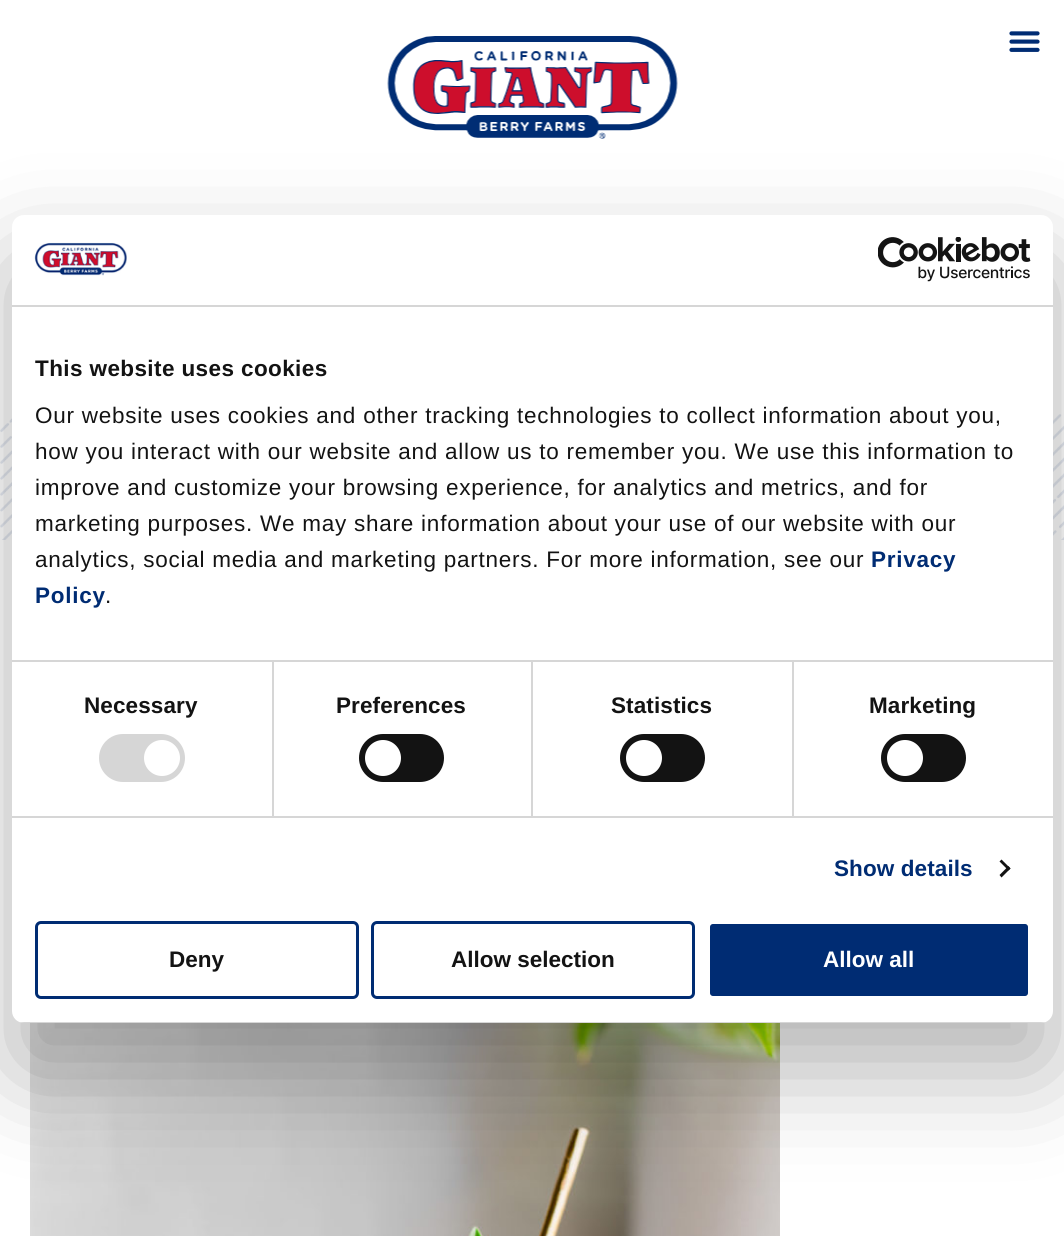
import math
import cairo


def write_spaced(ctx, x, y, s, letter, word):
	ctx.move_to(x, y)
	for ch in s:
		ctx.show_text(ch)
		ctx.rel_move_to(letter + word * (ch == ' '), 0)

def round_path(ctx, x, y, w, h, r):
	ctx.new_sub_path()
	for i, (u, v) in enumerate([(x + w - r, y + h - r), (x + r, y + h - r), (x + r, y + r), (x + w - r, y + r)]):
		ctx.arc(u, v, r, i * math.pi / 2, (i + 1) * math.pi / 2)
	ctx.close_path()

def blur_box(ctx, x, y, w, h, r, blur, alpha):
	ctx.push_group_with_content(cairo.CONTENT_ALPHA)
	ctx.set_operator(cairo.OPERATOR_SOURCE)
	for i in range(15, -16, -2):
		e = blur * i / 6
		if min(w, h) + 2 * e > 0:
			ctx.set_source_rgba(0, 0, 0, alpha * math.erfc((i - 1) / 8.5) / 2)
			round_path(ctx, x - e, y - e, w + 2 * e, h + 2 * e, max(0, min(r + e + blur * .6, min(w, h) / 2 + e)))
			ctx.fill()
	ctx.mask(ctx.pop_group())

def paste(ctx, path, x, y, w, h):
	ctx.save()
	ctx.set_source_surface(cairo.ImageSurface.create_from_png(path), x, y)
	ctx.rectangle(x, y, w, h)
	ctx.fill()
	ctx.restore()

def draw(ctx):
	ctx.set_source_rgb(1, 1, 1)
	ctx.paint()
	paste(ctx, 'media/1.png', 387, 36, 291, 103)
	paste(ctx, 'media/2.png', 1009, 31, 31, 21)
	paste(ctx, 'media/5.png', 0, 414, 1064, 126)
	paste(ctx, 'media/6.png', 30, 1023, 750, 213)
	ctx.set_source_rgb(0, 0, 0)
	blur_box(ctx, 12, 263, 1041, 808, 12, 51, 0.3)
	ctx.set_source_rgb(1, 1, 1)
	round_path(ctx, 12, 215, 1041, 808, 12)
	ctx.fill()
	ctx.set_source_rgb(0.839, 0.839, 0.839)
	ctx.rectangle(12, 305, 1041, 2)
	ctx.fill()
	paste(ctx, 'media/3.png', 34, 242, 93, 34)
	paste(ctx, 'media/4.png', 878, 237, 153, 45)
	ctx.rectangle(12, 660, 1041, 2)
	ctx.fill()
	ctx.select_font_face('Liberation Sans', cairo.FONT_SLANT_NORMAL, cairo.FONT_WEIGHT_BOLD)
	ctx.set_font_size(22.5)
	ctx.set_source_rgb(0.078, 0.078, 0.078)
	write_spaced(ctx, 35, 376, 'This website uses cookies', 0.4, 0)
	ctx.select_font_face('Liberation Sans')
	for x, y, s in [
		(35, 423, 'Our website uses cookies and other tracking technologies to collect information about you,'),
		(35, 459, 'how you interact with our website and allow us to remember you. We use this information to'),
		(35, 495, 'improve and customize your browsing experience, for analytics and metrics, and for'),
		(35, 531, 'marketing purposes. We may share information about your use of our website with our'),
		(35, 567, 'analytics, social media and marketing partners. For more information, see our'),
	]:
		write_spaced(ctx, x, y, s, 0.75, 0)
	ctx.select_font_face('Liberation Sans', cairo.FONT_SLANT_NORMAL, cairo.FONT_WEIGHT_BOLD)
	ctx.set_source_rgb(0, 0.173, 0.451)
	write_spaced(ctx, 871, 567, 'Privacy', 0.75, 0)
	write_spaced(ctx, 35, 603, 'Policy', 0.75, 0)
	ctx.select_font_face('Liberation Sans')
	ctx.set_source_rgb(0.078, 0.078, 0.078)
	write_spaced(ctx, 105, 603, '.', 0.75, 0)
	ctx.set_source_rgb(0.839, 0.839, 0.839)
	ctx.rectangle(12, 816, 1041, 2)
	ctx.fill()
	ctx.rectangle(272, 662, 2, 154)
	ctx.fill()
	ctx.select_font_face('Liberation Sans', cairo.FONT_SLANT_NORMAL, cairo.FONT_WEIGHT_BOLD)
	ctx.set_source_rgb(0.078, 0.078, 0.078)
	write_spaced(ctx, 84, 713, 'Necessary', 0.1, 0)
	ctx.set_source_rgb(0.839, 0.839, 0.839)
	round_path(ctx, 99, 734, 86, 48, 24)
	ctx.fill()
	ctx.set_source_rgb(1, 1, 1)
	ctx.arc(162, 758, 18, 0, 2 * math.pi)
	ctx.fill()
	ctx.set_source_rgb(0.839, 0.839, 0.839)
	ctx.rectangle(531, 662, 2, 154)
	ctx.fill()
	ctx.set_source_rgb(0.078, 0.078, 0.078)
	write_spaced(ctx, 336, 713, 'Preferences', 0.1, 0)
	round_path(ctx, 359, 734, 85, 48, 24)
	ctx.fill()
	ctx.set_source_rgb(1, 1, 1)
	ctx.arc(383, 758, 18, 0, 2 * math.pi)
	ctx.fill()
	ctx.set_source_rgb(0.839, 0.839, 0.839)
	ctx.rectangle(792, 662, 2, 154)
	ctx.fill()
	ctx.set_source_rgb(0.078, 0.078, 0.078)
	write_spaced(ctx, 611, 713, 'Statistics', 0.1, 0)
	round_path(ctx, 620, 734, 85, 48, 24)
	ctx.fill()
	ctx.set_source_rgb(1, 1, 1)
	ctx.arc(644, 758, 18, 0, 2 * math.pi)
	ctx.fill()
	ctx.set_source_rgb(0.078, 0.078, 0.078)
	write_spaced(ctx, 869, 713, 'Marketing', 0.1, 0)
	round_path(ctx, 881, 734, 85, 48, 24)
	ctx.fill()
	ctx.set_source_rgb(1, 1, 1)
	ctx.arc(905, 758, 18, 0, 2 * math.pi)
	ctx.fill()
	ctx.set_source_rgb(0, 0.173, 0.451)
	write_spaced(ctx, 834, 876, 'Show details', 0.1, 0)
	ctx.set_source_rgb(0.078, 0.078, 0.078)
	ctx.new_path()
	ctx.move_to(1001.5, 859.5)
	ctx.line_to(1010.5, 868.5)
	ctx.line_to(1008.5, 870.5)
	ctx.line_to(999.5, 861.5)
	ctx.close_path()
	ctx.fill()
	ctx.new_path()
	ctx.move_to(1008.5, 866)
	ctx.line_to(1010.5, 868.5)
	ctx.line_to(1001.5, 877.5)
	ctx.line_to(999.5, 875)
	ctx.close_path()
	ctx.fill()
	ctx.save()
	round_path(ctx, 12, 215, 1041, 808, 12)
	ctx.clip()
	ctx.set_source_rgb(0.839, 0.839, 0.839)
	ctx.rectangle(12, 1022, 1041, 1)
	ctx.fill()
	ctx.restore()
	round_path(ctx, 36.5, 922.5, 321, 75, 4.5)
	ctx.set_source_rgb(0, 0.173, 0.451)
	ctx.set_line_width(3)
	ctx.stroke()
	ctx.set_source_rgb(0.078, 0.078, 0.078)
	ctx.move_to(169, 967)
	ctx.show_text('Deny')
	round_path(ctx, 372.5, 922.5, 321, 75, 4.5)
	ctx.set_source_rgb(0, 0.173, 0.451)
	ctx.stroke()
	ctx.set_source_rgb(0.078, 0.078, 0.078)
	ctx.move_to(451, 967)
	ctx.show_text('Allow selection')
	ctx.set_source_rgb(0, 0.173, 0.451)
	round_path(ctx, 708.5, 922.5, 321, 75, 4.5)
	ctx.fill_preserve()
	ctx.set_source_rgb(1, 1, 1)
	ctx.stroke()
	ctx.move_to(823, 967)
	ctx.show_text('Allow all')


surface = cairo.ImageSurface(cairo.FORMAT_RGB24, 1064, 1236)
ctx = cairo.Context(surface)
options = cairo.FontOptions()
options.set_hint_metrics(cairo.HINT_METRICS_OFF)
options.set_hint_style(cairo.HINT_STYLE_NONE)
ctx.set_font_options(options)
ctx.set_miter_limit(4)
draw(ctx)
surface.write_to_png('image.png')
